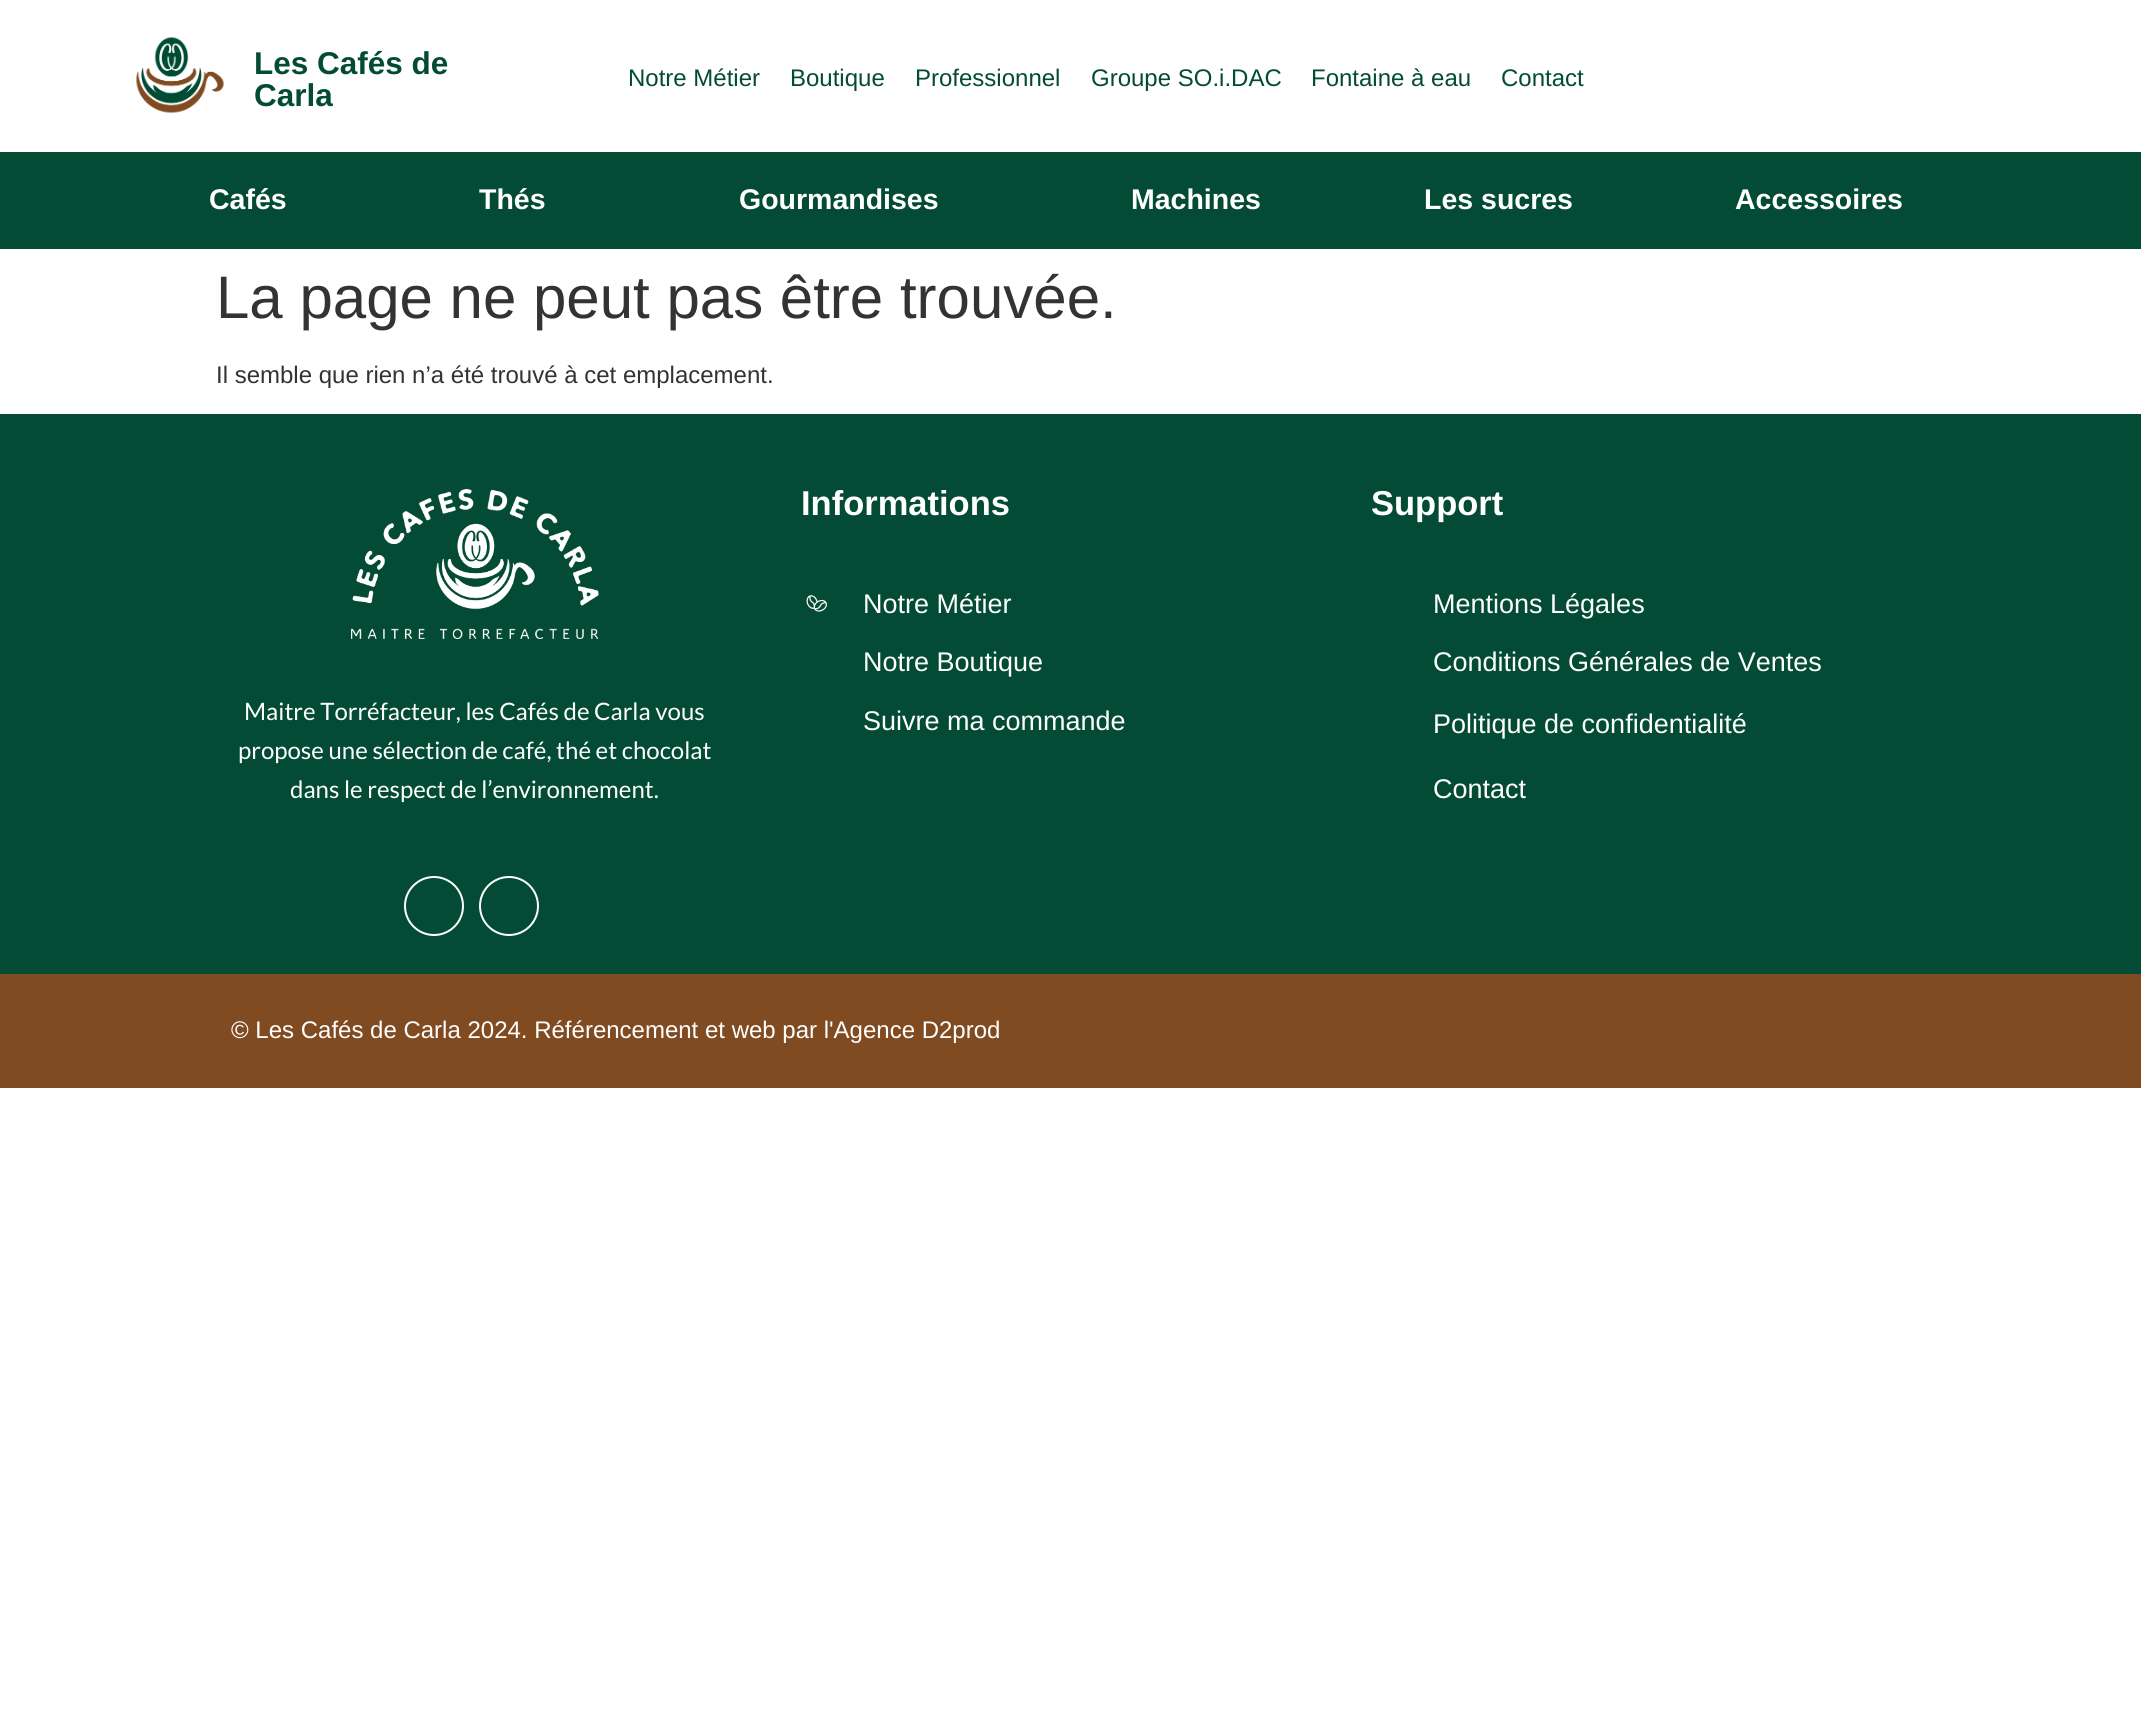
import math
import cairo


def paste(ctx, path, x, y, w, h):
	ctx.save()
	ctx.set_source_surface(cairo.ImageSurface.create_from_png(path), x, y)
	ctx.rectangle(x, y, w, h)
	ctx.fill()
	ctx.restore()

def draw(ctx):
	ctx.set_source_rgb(1, 1, 1)
	ctx.paint()
	paste(ctx, 'media/1.png', 136, 37, 88, 76)
	ctx.select_font_face('Liberation Sans', cairo.FONT_SLANT_NORMAL, cairo.FONT_WEIGHT_BOLD)
	ctx.set_font_size(31.5)
	ctx.set_source_rgb(0.012, 0.294, 0.204)
	ctx.move_to(254, 74)
	ctx.show_text('Les Cafés de')
	ctx.move_to(254, 106)
	ctx.show_text('Carla')
	ctx.select_font_face('Liberation Sans')
	ctx.set_font_size(24)
	for x, y, s in [
		(628, 86, 'Notre Métier'),
		(790, 86, 'Boutique'),
		(915, 86, 'Professionnel'),
		(1091, 86, 'Groupe SO.i.DAC'),
		(1311, 86, 'Fontaine à eau'),
		(1501, 86, 'Contact'),
	]:
		ctx.move_to(x, y)
		ctx.show_text(s)
	ctx.rectangle(0, 152, 2141, 97)
	ctx.fill()
	ctx.select_font_face('Liberation Sans', cairo.FONT_SLANT_NORMAL, cairo.FONT_WEIGHT_BOLD)
	ctx.set_font_size(28.5)
	ctx.set_source_rgb(1, 1, 1)
	for x, y, s in [
		(209, 209, 'Cafés'),
		(479, 209, 'Thés'),
		(739, 209, 'Gourmandises'),
		(1131, 209, 'Machines'),
		(1424, 209, 'Les sucres'),
		(1735, 209, 'Accessoires'),
	]:
		ctx.move_to(x, y)
		ctx.show_text(s)
	ctx.select_font_face('Liberation Sans')
	ctx.set_font_size(60)
	ctx.set_source_rgb(0.2, 0.2, 0.2)
	ctx.move_to(216, 318)
	ctx.show_text('La page ne peut pas être trouvée.')
	ctx.set_font_size(24)
	ctx.move_to(216, 383)
	ctx.show_text('Il semble que rien n’a été trouvé à cet emplacement.')
	ctx.set_source_rgb(0.012, 0.294, 0.204)
	ctx.rectangle(0, 414, 2141, 560)
	ctx.fill()
	paste(ctx, 'media/2.png', 351, 489, 248, 150)
	ctx.select_font_face('Lato')
	ctx.set_source_rgb(1, 1, 1)
	for x, y, s in [
		(244, 720, 'Maitre Torréfacteur, les Cafés de Carla vous'),
		(238, 759, 'propose une sélection de café, thé et chocolat'),
		(290, 798, 'dans le respect de l’environnement.'),
	]:
		ctx.move_to(x, y)
		ctx.show_text(s)
	ctx.new_path()
	ctx.arc(434, 906, 29, 0, 2 * math.pi)
	ctx.stroke()
	ctx.arc(509, 906, 29, 0, 2 * math.pi)
	ctx.stroke()
	ctx.select_font_face('Liberation Sans', cairo.FONT_SLANT_NORMAL, cairo.FONT_WEIGHT_BOLD)
	ctx.set_font_size(34.5)
	ctx.move_to(801, 515)
	ctx.show_text('Informations')
	paste(ctx, 'media/3.png', 806, 595, 21, 17)
	ctx.select_font_face('Liberation Sans')
	ctx.set_font_size(27)
	for x, y, s in [
		(863, 613, 'Notre Métier'),
		(863, 671, 'Notre Boutique'),
		(863, 730, 'Suivre ma commande'),
	]:
		ctx.move_to(x, y)
		ctx.show_text(s)
	ctx.select_font_face('Liberation Sans', cairo.FONT_SLANT_NORMAL, cairo.FONT_WEIGHT_BOLD)
	ctx.set_font_size(34.5)
	ctx.move_to(1371, 515)
	ctx.show_text('Support')
	ctx.select_font_face('Liberation Sans')
	ctx.set_font_size(27)
	for x, y, s in [
		(1433, 613, 'Mentions Légales'),
		(1433, 671, 'Conditions Générales de Ventes'),
		(1433, 733, 'Politique de confidentialité'),
		(1433, 798, 'Contact'),
	]:
		ctx.move_to(x, y)
		ctx.show_text(s)
	ctx.set_source_rgb(0.506, 0.294, 0.133)
	ctx.rectangle(0, 974, 2141, 114)
	ctx.fill()
	ctx.set_font_size(24)
	ctx.set_source_rgb(1, 1, 1)
	ctx.move_to(231, 1038)
	ctx.show_text('© Les Cafés de Carla 2024. Référencement et web par l\'Agence D2prod')


surface = cairo.ImageSurface(cairo.FORMAT_RGB24, 2141, 1712)
ctx = cairo.Context(surface)
options = cairo.FontOptions()
options.set_hint_metrics(cairo.HINT_METRICS_OFF)
options.set_hint_style(cairo.HINT_STYLE_NONE)
ctx.set_font_options(options)
ctx.set_miter_limit(4)
draw(ctx)
surface.write_to_png('image.png')
